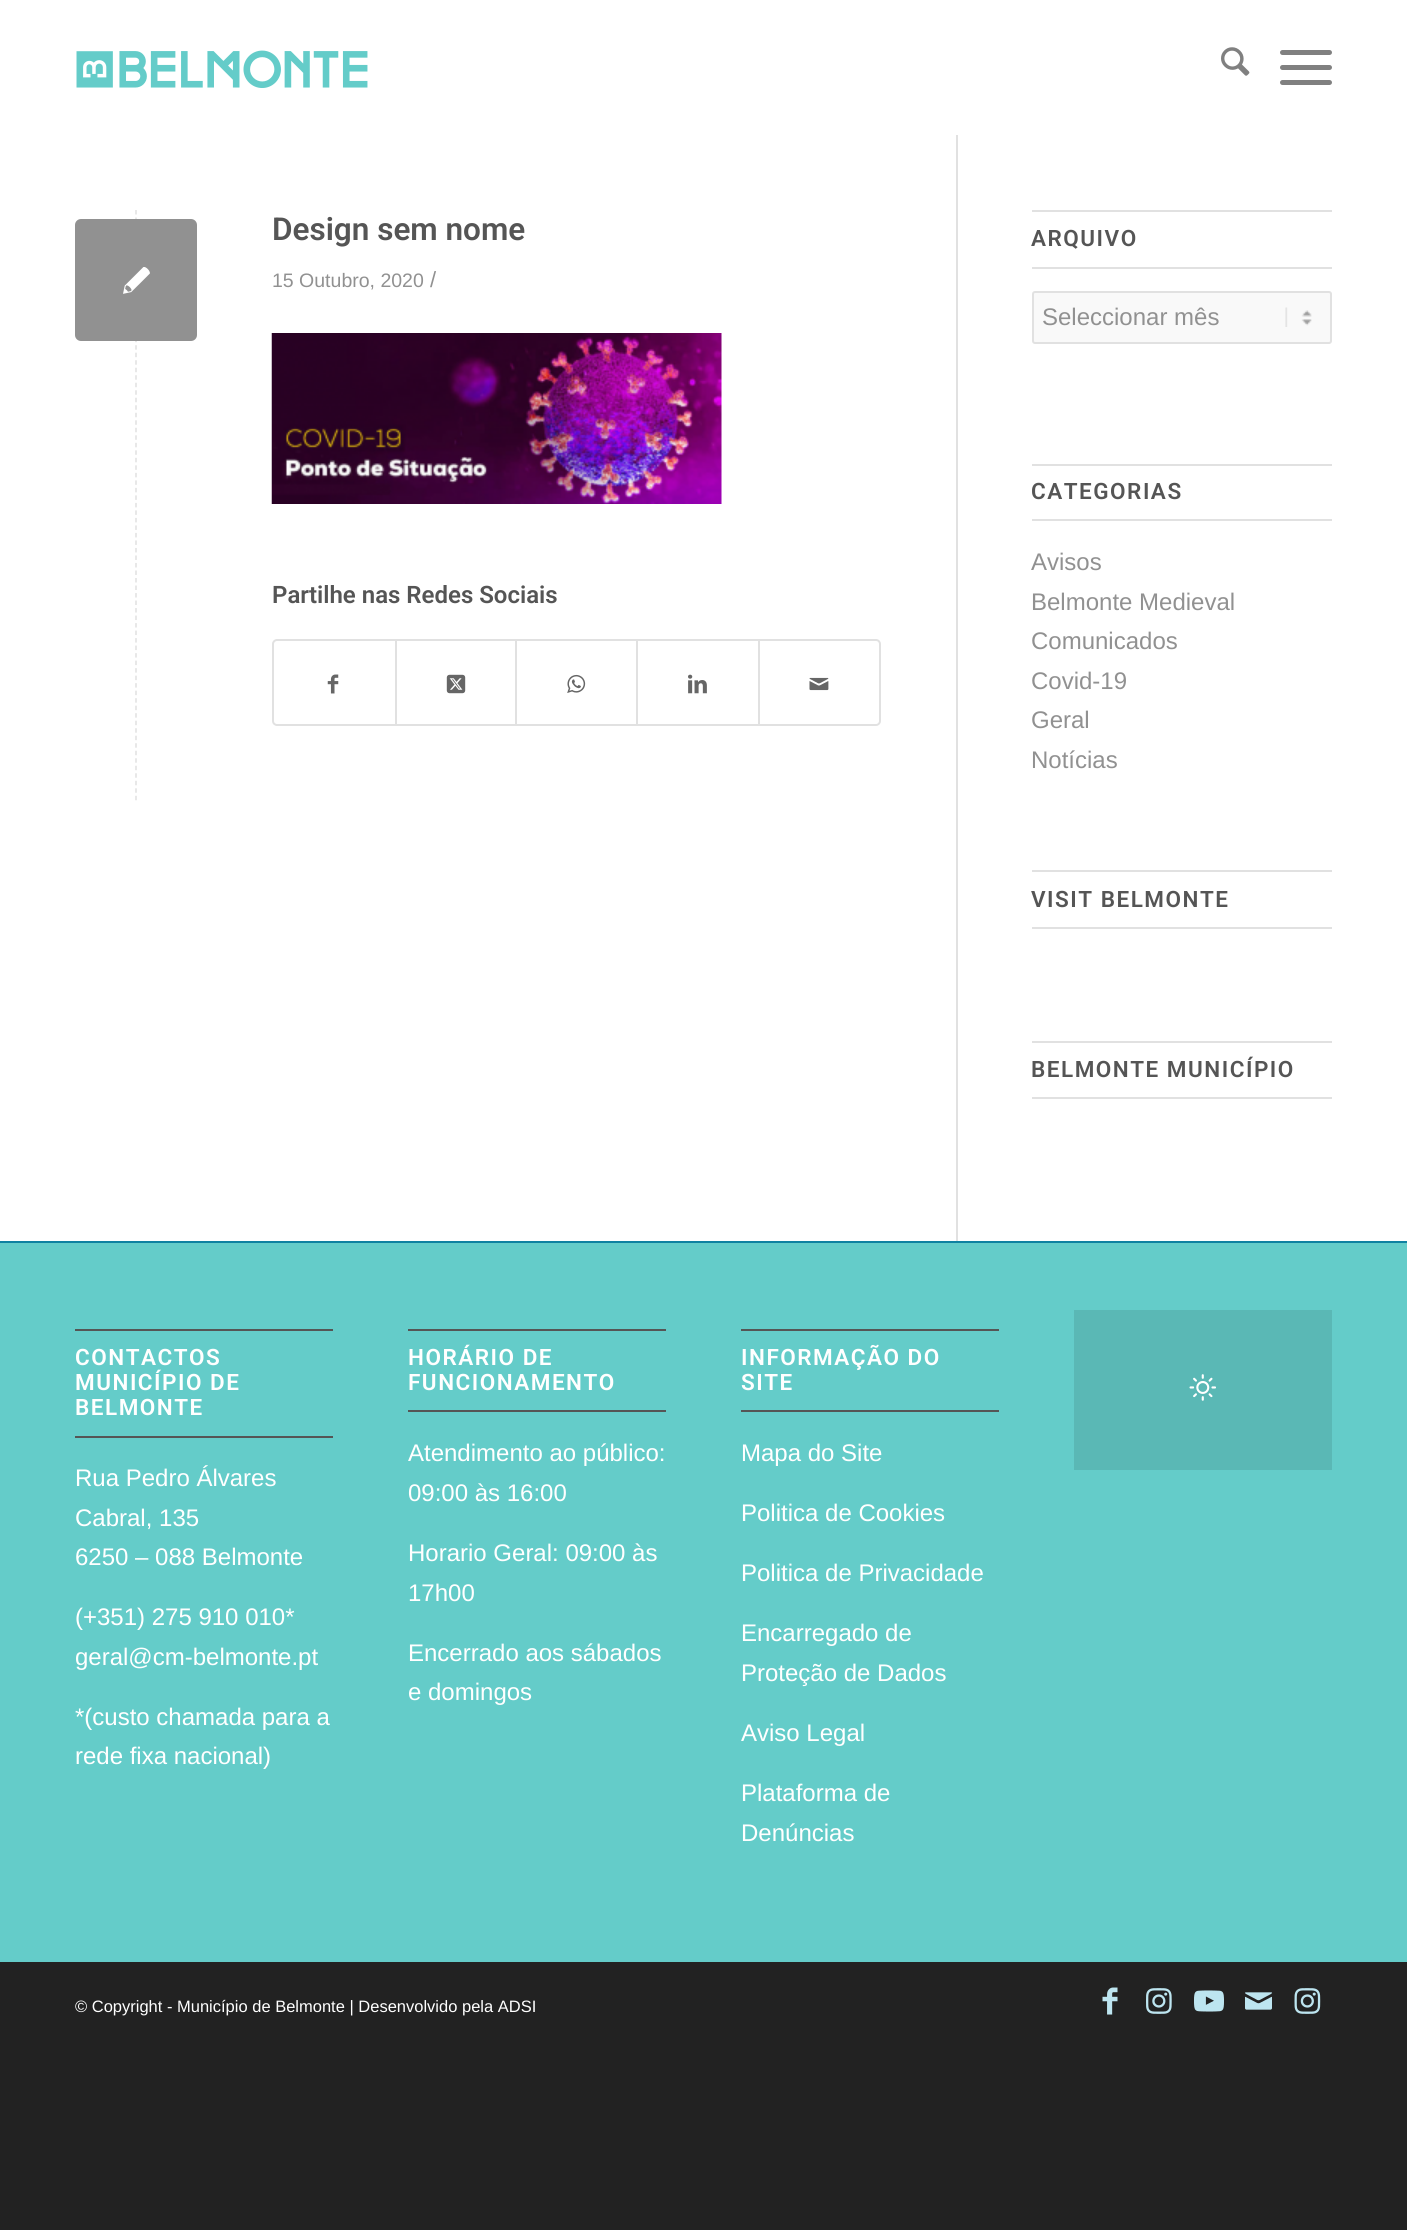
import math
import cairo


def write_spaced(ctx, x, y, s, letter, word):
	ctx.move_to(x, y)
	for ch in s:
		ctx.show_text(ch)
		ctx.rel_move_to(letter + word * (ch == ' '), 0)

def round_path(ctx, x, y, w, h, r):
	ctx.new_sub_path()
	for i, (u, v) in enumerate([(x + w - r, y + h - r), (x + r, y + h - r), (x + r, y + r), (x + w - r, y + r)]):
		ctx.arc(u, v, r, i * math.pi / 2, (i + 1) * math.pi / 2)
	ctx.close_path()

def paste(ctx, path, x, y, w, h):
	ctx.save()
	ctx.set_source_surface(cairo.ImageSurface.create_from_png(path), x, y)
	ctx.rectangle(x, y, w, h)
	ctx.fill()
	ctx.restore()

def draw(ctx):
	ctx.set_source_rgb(0.133, 0.133, 0.133)
	ctx.paint()
	ctx.set_source_rgb(1, 1, 1)
	ctx.rectangle(0, 0, 1407, 1241)
	ctx.fill()
	paste(ctx, 'media/1.png', 76, 50, 292, 38)
	paste(ctx, 'media/2.png', 1221, 47, 29, 29)
	ctx.set_source_rgb(0.502, 0.502, 0.502)
	round_path(ctx, 1280, 65, 52, 5, 2.5)
	ctx.fill()
	round_path(ctx, 1280, 50, 52, 5, 2.5)
	ctx.fill()
	round_path(ctx, 1280, 80, 52, 5, 2.5)
	ctx.fill()
	ctx.new_path()
	ctx.move_to(136, 210)
	ctx.line_to(136, 801)
	ctx.set_source_rgb(0.882, 0.882, 0.882)
	ctx.set_line_width(1.5)
	ctx.set_dash([4.5, 3.01])
	ctx.stroke()
	ctx.select_font_face('Roboto SemiBold')
	ctx.set_font_size(31.5)
	ctx.set_source_rgb(0.333, 0.333, 0.333)
	ctx.move_to(272, 240)
	ctx.show_text('Design sem nome')
	ctx.select_font_face('Liberation Sans')
	ctx.set_font_size(19.5)
	ctx.set_source_rgb(0.569, 0.569, 0.569)
	ctx.move_to(272, 287)
	ctx.show_text('15 Outubro, 2020')
	ctx.set_font_size(22)
	ctx.move_to(430, 287)
	ctx.show_text('/')
	paste(ctx, 'media/3.png', 271, 333, 451, 171)
	ctx.select_font_face('Roboto SemiBold')
	ctx.set_font_size(24)
	ctx.set_source_rgb(0.333, 0.333, 0.333)
	ctx.move_to(272, 603)
	ctx.show_text('Partilhe nas Redes Sociais')
	round_path(ctx, 273, 640, 607, 85, 4)
	ctx.set_source_rgb(0.882, 0.882, 0.882)
	ctx.set_line_width(2)
	ctx.set_dash([])
	ctx.stroke()
	paste(ctx, 'media/4.png', 327, 674, 12, 20)
	ctx.rectangle(395, 641, 2, 84)
	ctx.fill()
	paste(ctx, 'media/5.png', 446, 674, 20, 20)
	ctx.rectangle(515, 641, 2, 84)
	ctx.fill()
	paste(ctx, 'media/6.png', 567, 674, 19, 19)
	ctx.rectangle(636, 641, 2, 84)
	ctx.fill()
	paste(ctx, 'media/7.png', 688, 674, 19, 20)
	ctx.rectangle(758, 641, 2, 84)
	ctx.fill()
	paste(ctx, 'media/8.png', 809, 677, 20, 14)
	ctx.set_source_rgb(0.569, 0.569, 0.569)
	round_path(ctx, 75, 219, 122, 122, 6)
	ctx.fill()
	paste(ctx, 'media/9.png', 123, 267, 27, 27)
	ctx.set_source_rgb(0.882, 0.882, 0.882)
	ctx.rectangle(956, 135, 2, 1106)
	ctx.rectangle(1032, 210, 300, 2)
	ctx.rectangle(1032, 267, 300, 2)
	ctx.fill()
	ctx.set_font_size(22.5)
	ctx.set_source_rgb(0.333, 0.333, 0.333)
	write_spaced(ctx, 1031, 246, 'ARQUIVO', 1.5, 0)
	ctx.set_source_rgb(0.973, 0.973, 0.973)
	round_path(ctx, 1032, 291, 300, 53, 3)
	ctx.fill()
	paste(ctx, 'media/10.png', 1285, 307, 27, 20)
	round_path(ctx, 1033, 292, 298, 51, 2)
	ctx.set_source_rgb(0.882, 0.882, 0.882)
	ctx.stroke()
	ctx.select_font_face('Liberation Sans')
	ctx.set_font_size(24)
	ctx.set_source_rgb(0.569, 0.569, 0.569)
	ctx.move_to(1042, 325)
	ctx.show_text('Seleccionar mês')
	ctx.set_source_rgb(0.882, 0.882, 0.882)
	ctx.rectangle(1032, 464, 300, 2)
	ctx.fill()
	ctx.rectangle(1032, 519, 300, 2)
	ctx.fill()
	ctx.select_font_face('Roboto SemiBold')
	ctx.set_font_size(22.5)
	ctx.set_source_rgb(0.333, 0.333, 0.333)
	write_spaced(ctx, 1031, 499, 'CATEGORIAS', 1.5, 0)
	ctx.select_font_face('Liberation Sans')
	ctx.set_font_size(24)
	ctx.set_source_rgb(0.569, 0.569, 0.569)
	for x, y, s in [
		(1031, 570, 'Avisos'),
		(1031, 610, 'Belmonte Medieval'),
		(1031, 649, 'Comunicados'),
		(1031, 689, 'Covid-19'),
		(1031, 728, 'Geral'),
		(1031, 768, 'Notícias'),
	]:
		ctx.move_to(x, y)
		ctx.show_text(s)
	ctx.set_source_rgb(0.882, 0.882, 0.882)
	ctx.rectangle(1032, 870, 300, 2)
	ctx.fill()
	ctx.rectangle(1032, 927, 300, 2)
	ctx.fill()
	ctx.select_font_face('Roboto SemiBold')
	ctx.set_font_size(22.5)
	ctx.set_source_rgb(0.333, 0.333, 0.333)
	write_spaced(ctx, 1031, 907, 'VISIT BELMONTE', 1.5, 0)
	ctx.set_source_rgb(0.882, 0.882, 0.882)
	ctx.rectangle(1032, 1041, 300, 2)
	ctx.fill()
	ctx.rectangle(1032, 1097, 300, 2)
	ctx.fill()
	ctx.set_source_rgb(0.333, 0.333, 0.333)
	write_spaced(ctx, 1031, 1077, 'BELMONTE MUNICÍPIO', 1.5, 0)
	ctx.set_source_rgb(0.392, 0.8, 0.788)
	ctx.rectangle(0, 1243, 1407, 719)
	ctx.fill()
	ctx.set_source_rgb(0.059, 0.506, 0.631)
	ctx.rectangle(0, 1241, 1407, 2)
	ctx.fill()
	ctx.set_source_rgb(0.333, 0.333, 0.333)
	ctx.rectangle(75, 1329, 258, 2)
	ctx.rectangle(75, 1436, 258, 2)
	ctx.fill()
	ctx.set_source_rgb(1, 1, 1)
	for x, y, s in [
		(75, 1365, 'CONTACTOS'),
		(75, 1390, 'MUNICÍPIO DE'),
		(75, 1415, 'BELMONTE'),
	]:
		write_spaced(ctx, x, y, s, 1.5, 0)
	ctx.select_font_face('Liberation Sans')
	ctx.set_font_size(24)
	for x, y, s in [
		(75, 1486, 'Rua Pedro Álvares'),
		(75, 1526, 'Cabral, 135'),
		(75, 1565, '6250 – 088 Belmonte'),
		(75, 1625, '(+351) 275 910 010*'),
		(75, 1665, 'geral@cm-belmonte.pt'),
		(75, 1725, '*(custo chamada para a'),
		(75, 1764, 'rede fixa nacional)'),
	]:
		ctx.move_to(x, y)
		ctx.show_text(s)
	ctx.set_source_rgb(0.333, 0.333, 0.333)
	ctx.rectangle(408, 1329, 258, 2)
	ctx.fill()
	ctx.rectangle(408, 1410, 258, 2)
	ctx.fill()
	ctx.select_font_face('Roboto SemiBold')
	ctx.set_font_size(22.5)
	ctx.set_source_rgb(1, 1, 1)
	write_spaced(ctx, 408, 1365, 'HORÁRIO DE', 1.5, 0)
	write_spaced(ctx, 408, 1390, 'FUNCIONAMENTO', 1.5, 0)
	ctx.select_font_face('Liberation Sans')
	ctx.set_font_size(24)
	for x, y, s in [
		(408, 1461, 'Atendimento ao público:'),
		(408, 1501, '09:00 às 16:00'),
		(408, 1561, 'Horario Geral: 09:00 às'),
		(408, 1601, '17h00'),
		(408, 1661, 'Encerrado aos sábados'),
		(408, 1700, 'e domingos'),
	]:
		ctx.move_to(x, y)
		ctx.show_text(s)
	ctx.set_source_rgb(0.333, 0.333, 0.333)
	ctx.rectangle(741, 1329, 258, 2)
	ctx.fill()
	ctx.rectangle(741, 1410, 258, 2)
	ctx.fill()
	ctx.select_font_face('Roboto SemiBold')
	ctx.set_font_size(22.5)
	ctx.set_source_rgb(1, 1, 1)
	write_spaced(ctx, 741, 1365, 'INFORMAÇÃO DO', 1.5, 0)
	write_spaced(ctx, 741, 1390, 'SITE', 1.5, 0)
	ctx.select_font_face('Liberation Sans')
	ctx.set_font_size(24)
	for x, y, s in [
		(741, 1461, 'Mapa do Site'),
		(741, 1521, 'Politica de Cookies'),
		(741, 1581, 'Politica de Privacidade'),
		(741, 1641, 'Encarregado de'),
		(741, 1681, 'Proteção de Dados'),
		(741, 1741, 'Aviso Legal'),
		(741, 1801, 'Plataforma de'),
		(741, 1841, 'Denúncias'),
	]:
		ctx.move_to(x, y)
		ctx.show_text(s)
	ctx.set_source_rgb(0.353, 0.722, 0.71)
	ctx.rectangle(1074, 1310, 258, 160)
	ctx.fill()
	paste(ctx, 'media/11.png', 1189, 1374, 27, 27)
	ctx.set_font_size(16.5)
	ctx.set_source_rgb(1, 1, 1)
	ctx.move_to(75, 2012)
	ctx.show_text('© Copyright - Município de Belmonte | Desenvolvido pela ADSI')
	paste(ctx, 'media/12.png', 1102, 1987, 16, 28)
	paste(ctx, 'media/13.png', 1146, 1988, 26, 26)
	paste(ctx, 'media/14.png', 1194, 1990, 30, 22)
	paste(ctx, 'media/15.png', 1245, 1992, 27, 18)
	paste(ctx, 'media/16.png', 1294, 1988, 27, 26)


surface = cairo.ImageSurface(cairo.FORMAT_RGB24, 1407, 2230)
ctx = cairo.Context(surface)
options = cairo.FontOptions()
options.set_hint_metrics(cairo.HINT_METRICS_OFF)
options.set_hint_style(cairo.HINT_STYLE_NONE)
ctx.set_font_options(options)
ctx.set_miter_limit(4)
draw(ctx)
surface.write_to_png('image.png')
